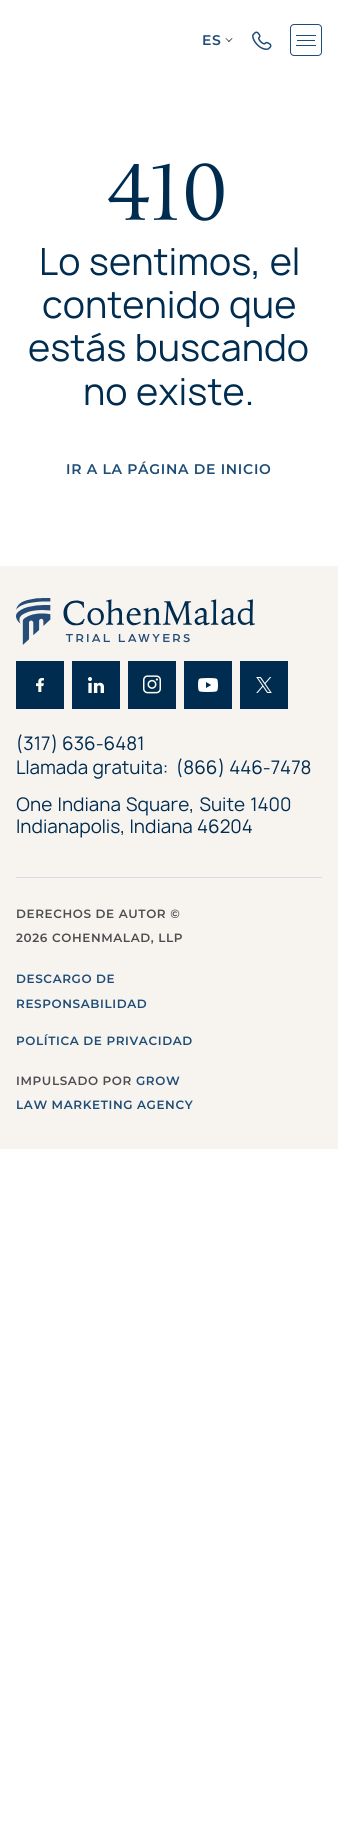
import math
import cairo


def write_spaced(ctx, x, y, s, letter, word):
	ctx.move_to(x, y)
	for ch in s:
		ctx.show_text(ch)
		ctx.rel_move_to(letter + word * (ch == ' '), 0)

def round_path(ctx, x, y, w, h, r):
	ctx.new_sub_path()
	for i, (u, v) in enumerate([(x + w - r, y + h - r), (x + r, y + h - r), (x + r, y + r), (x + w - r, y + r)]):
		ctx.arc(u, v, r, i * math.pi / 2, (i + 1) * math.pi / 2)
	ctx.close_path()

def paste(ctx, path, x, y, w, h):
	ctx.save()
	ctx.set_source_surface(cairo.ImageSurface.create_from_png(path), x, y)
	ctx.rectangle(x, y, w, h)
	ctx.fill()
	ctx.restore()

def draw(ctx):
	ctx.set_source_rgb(1, 1, 1)
	ctx.paint()
	ctx.select_font_face('Montserrat SemiBold')
	ctx.set_font_size(14)
	ctx.set_source_rgb(0.118, 0.298, 0.467)
	write_spaced(ctx, 202, 45, 'ES', 0.7, 0)
	ctx.set_source_rgb(0.22, 0.227, 0.235)
	ctx.new_path()
	ctx.move_to(232, 38)
	ctx.line_to(232.5, 38.5)
	ctx.line_to(229, 42)
	ctx.line_to(228, 41.5)
	ctx.close_path()
	ctx.fill()
	ctx.new_path()
	ctx.move_to(226, 38)
	ctx.line_to(229.5, 41.5)
	ctx.line_to(229, 42)
	ctx.line_to(225.5, 38.5)
	ctx.close_path()
	ctx.fill()
	paste(ctx, 'media/1.png', 252, 31, 20, 19)
	round_path(ctx, 290.5, 24.5, 31, 31, 3.5)
	ctx.set_source_rgb(0.118, 0.298, 0.467)
	ctx.set_line_width(1)
	ctx.stroke()
	ctx.rectangle(296, 35, 20, 1)
	ctx.rectangle(297, 40, 18, 1)
	ctx.rectangle(296, 45, 20, 1)
	ctx.fill()
	ctx.select_font_face('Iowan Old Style')
	ctx.set_font_size(80)
	ctx.set_source_rgb(0, 0.173, 0.314)
	ctx.move_to(108, 220)
	ctx.show_text('410')
	ctx.select_font_face('Manrope')
	ctx.set_font_size(36)
	for x, y, s in [
		(39, 275, 'Lo sentimos, el'),
		(42, 318, 'contenido que'),
		(28, 361, 'estás buscando'),
		(83, 405, 'no existe.'),
	]:
		ctx.move_to(x, y)
		ctx.show_text(s)
	ctx.select_font_face('Montserrat SemiBold')
	ctx.set_font_size(14)
	ctx.set_source_rgb(0.118, 0.298, 0.467)
	write_spaced(ctx, 66, 474, 'IR A LA PÁGINA DE INICIO', 0.7, 0)
	ctx.set_source_rgb(0.965, 0.957, 0.941)
	ctx.rectangle(0, 566, 338, 583)
	ctx.fill()
	ctx.set_source_rgb(0.847, 0.859, 0.882)
	ctx.rectangle(16, 877, 306, 1)
	ctx.fill()
	paste(ctx, 'media/2.png', 16, 598, 239, 47)
	ctx.set_source_rgb(0, 0.173, 0.314)
	ctx.rectangle(16, 661, 48, 48)
	ctx.fill()
	paste(ctx, 'media/3.png', 36, 678, 8, 14)
	ctx.rectangle(72, 661, 48, 48)
	ctx.fill()
	paste(ctx, 'media/4.png', 88, 677, 16, 16)
	ctx.rectangle(128, 661, 48, 48)
	ctx.fill()
	paste(ctx, 'media/5.png', 143, 675, 18, 19)
	ctx.rectangle(184, 661, 48, 48)
	ctx.fill()
	paste(ctx, 'media/6.png', 198, 678, 20, 14)
	ctx.rectangle(240, 661, 48, 48)
	ctx.fill()
	paste(ctx, 'media/7.png', 256, 677, 16, 16)
	ctx.select_font_face('Manrope')
	ctx.set_font_size(18)
	for x, y, s in [
		(16, 750, '(317) 636-6481'),
		(16, 774, 'Llamada gratuita:'),
		(176, 774, '(866) 446-7478'),
	]:
		ctx.move_to(x, y)
		ctx.show_text(s)
	write_spaced(ctx, 16, 811, 'One Indiana Square, Suite 1400', 0, 1)
	ctx.move_to(16, 833)
	ctx.show_text('Indianapolis, Indiana 46204')
	ctx.select_font_face('Montserrat SemiBold')
	ctx.set_font_size(12)
	ctx.set_source_rgb(0.298, 0.302, 0.31)
	write_spaced(ctx, 16, 918, 'DERECHOS DE AUTOR ©', 0.6, 0)
	write_spaced(ctx, 16, 942, '2026 COHENMALAD, LLP', 0.6, 0)
	ctx.set_source_rgb(0.118, 0.298, 0.467)
	for x, y, s in [
		(16, 983, 'DESCARGO DE'),
		(16, 1008, 'RESPONSABILIDAD'),
		(16, 1045, 'POLÍTICA DE PRIVACIDAD'),
	]:
		write_spaced(ctx, x, y, s, 0.6, 0)
	ctx.set_source_rgb(0.298, 0.302, 0.31)
	write_spaced(ctx, 16, 1085, 'IMPULSADO POR', 0.6, 0)
	ctx.set_source_rgb(0.118, 0.298, 0.467)
	write_spaced(ctx, 136, 1085, 'GROW', 0.6, 0)
	write_spaced(ctx, 16, 1109, 'LAW MARKETING AGENCY', 0.6, 0)


surface = cairo.ImageSurface(cairo.FORMAT_RGB24, 338, 1821)
ctx = cairo.Context(surface)
options = cairo.FontOptions()
options.set_hint_metrics(cairo.HINT_METRICS_OFF)
options.set_hint_style(cairo.HINT_STYLE_NONE)
ctx.set_font_options(options)
ctx.set_miter_limit(4)
draw(ctx)
surface.write_to_png('image.png')
